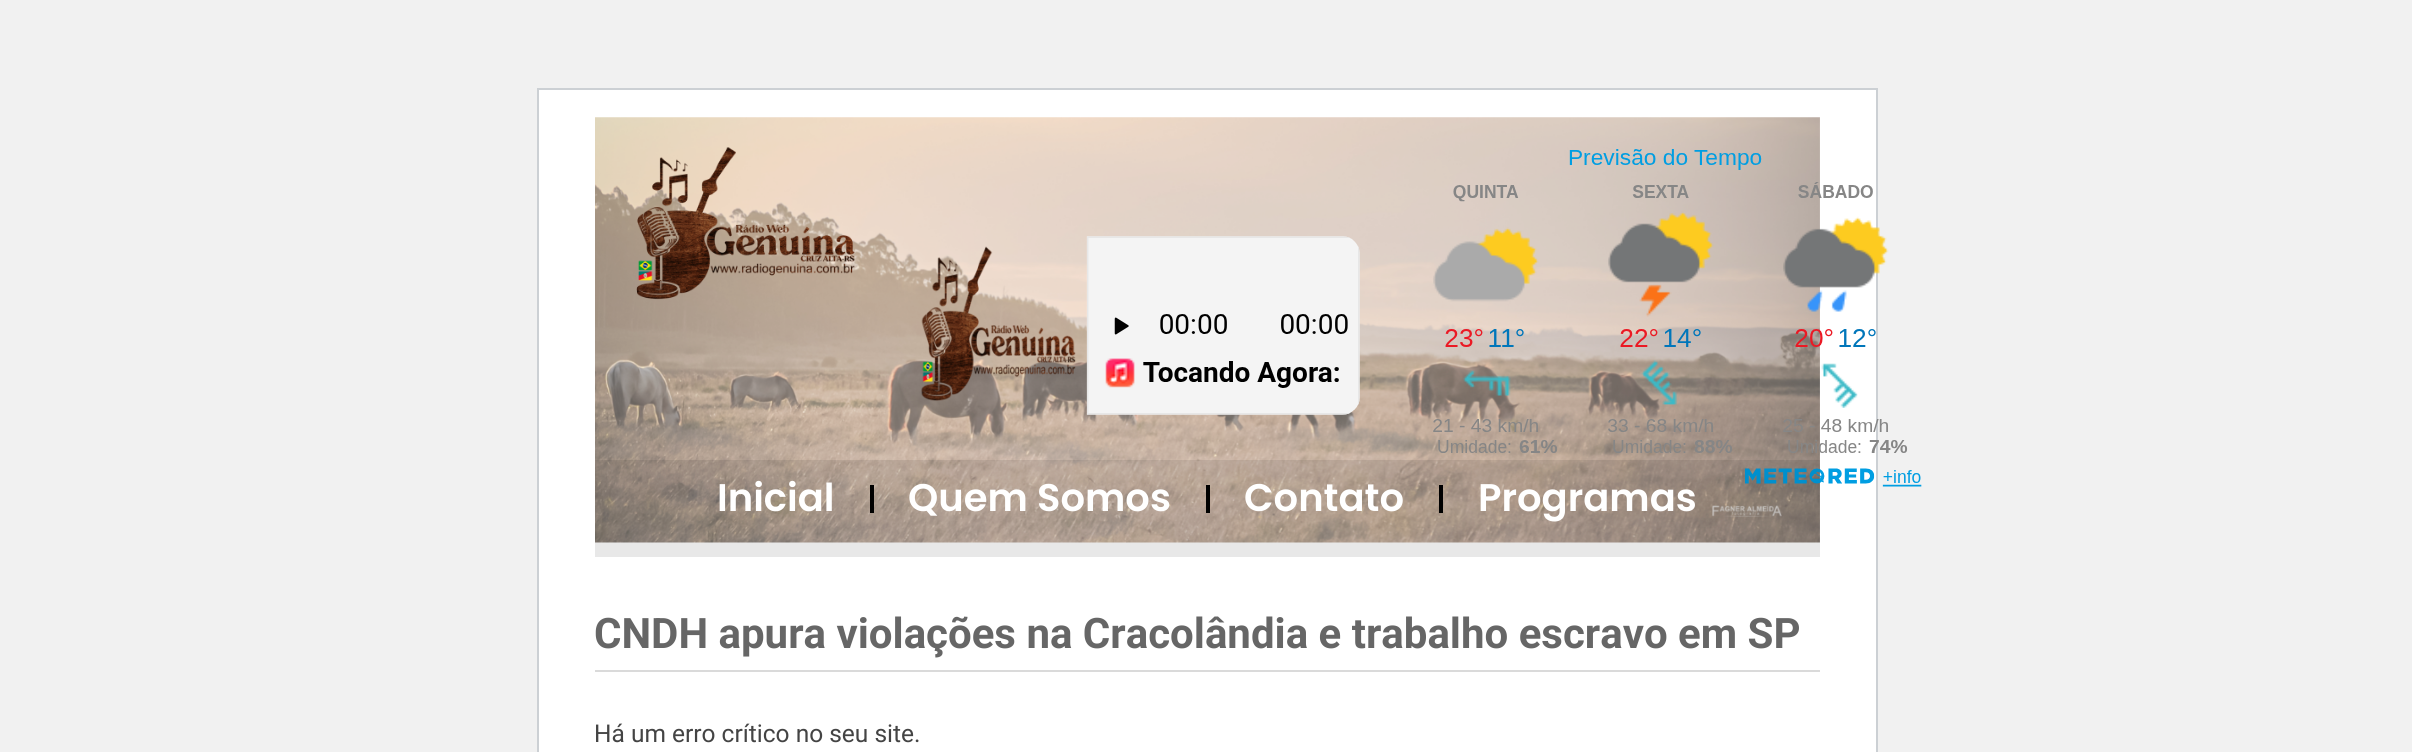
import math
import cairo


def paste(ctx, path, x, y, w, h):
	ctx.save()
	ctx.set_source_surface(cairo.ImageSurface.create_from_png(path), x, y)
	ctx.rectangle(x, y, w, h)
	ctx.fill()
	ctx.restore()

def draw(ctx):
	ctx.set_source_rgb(0.945, 0.945, 0.945)
	ctx.paint()
	ctx.set_source_rgb(1, 1, 1)
	ctx.rectangle(538, 89, 1339, 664)
	ctx.fill_preserve()
	ctx.set_source_rgb(0.8, 0.816, 0.831)
	ctx.stroke()
	paste(ctx, 'media/1.png', 595, 117, 1225, 426)
	paste(ctx, 'media/2.png', 636, 147, 219, 153)
	paste(ctx, 'media/3.png', 921, 236, 439, 179)
	paste(ctx, 'media/4.png', 1433, 149, 489, 338)
	ctx.set_source_rgba(0, 0, 0, 0.09)
	ctx.rectangle(595, 460, 1225, 97)
	ctx.fill()
	ctx.select_font_face('Poppins SemiBold')
	ctx.set_font_size(38.5)
	ctx.set_source_rgb(1, 1, 1)
	ctx.move_to(717, 511)
	ctx.show_text('Inicial')
	ctx.set_source_rgb(0, 0, 0)
	ctx.rectangle(870, 485, 4, 28)
	ctx.fill()
	ctx.set_source_rgb(1, 1, 1)
	ctx.move_to(908, 511)
	ctx.show_text('Quem Somos')
	ctx.set_source_rgb(0, 0, 0)
	ctx.rectangle(1206, 485, 4, 28)
	ctx.fill()
	ctx.set_source_rgb(1, 1, 1)
	ctx.move_to(1244, 511)
	ctx.show_text('Contato')
	ctx.set_source_rgb(0, 0, 0)
	ctx.rectangle(1439, 485, 4, 28)
	ctx.fill()
	ctx.set_source_rgb(1, 1, 1)
	ctx.move_to(1478, 511)
	ctx.show_text('Programas')
	ctx.set_source_rgb(0.855, 0.855, 0.855)
	ctx.rectangle(595, 670, 1225, 2)
	ctx.fill()
	ctx.select_font_face('Roboto', cairo.FONT_SLANT_NORMAL, cairo.FONT_WEIGHT_BOLD)
	ctx.set_font_size(42)
	ctx.set_source_rgb(0.4, 0.4, 0.4)
	ctx.move_to(594, 648)
	ctx.show_text('CNDH apura violações na Cracolândia e trabalho escravo em SP')
	ctx.select_font_face('Roboto')
	ctx.set_font_size(24.5)
	ctx.set_source_rgb(0.267, 0.267, 0.267)
	ctx.move_to(594, 742)
	ctx.show_text('Há um erro crítico no seu site.')


surface = cairo.ImageSurface(cairo.FORMAT_RGB24, 2412, 752)
ctx = cairo.Context(surface)
options = cairo.FontOptions()
options.set_hint_metrics(cairo.HINT_METRICS_OFF)
options.set_hint_style(cairo.HINT_STYLE_NONE)
ctx.set_font_options(options)
ctx.set_miter_limit(4)
draw(ctx)
surface.write_to_png('image.png')
